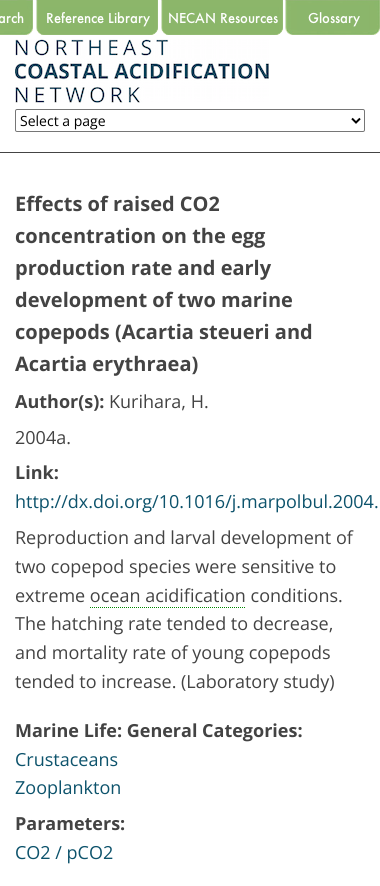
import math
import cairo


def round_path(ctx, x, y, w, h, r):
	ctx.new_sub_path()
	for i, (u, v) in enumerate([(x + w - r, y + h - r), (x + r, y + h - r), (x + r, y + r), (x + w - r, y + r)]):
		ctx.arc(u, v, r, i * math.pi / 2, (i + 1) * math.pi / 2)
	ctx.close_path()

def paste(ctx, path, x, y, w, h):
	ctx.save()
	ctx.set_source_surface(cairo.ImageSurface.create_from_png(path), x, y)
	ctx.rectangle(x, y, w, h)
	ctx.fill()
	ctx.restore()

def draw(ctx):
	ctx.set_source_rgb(1, 1, 1)
	ctx.paint()
	ctx.set_source_rgb(0.267, 0.267, 0.267)
	ctx.rectangle(0, 152, 380, 1)
	ctx.fill()
	paste(ctx, 'media/1.png', 0, 0, 33, 35)
	paste(ctx, 'media/2.png', 36, 0, 122, 35)
	paste(ctx, 'media/3.png', 161, 0, 122, 35)
	paste(ctx, 'media/4.png', 285, 0, 95, 35)
	paste(ctx, 'media/5.png', 15, 39, 254, 64)
	round_path(ctx, 15.5, 109.5, 349, 22, 1.5)
	ctx.set_source_rgb(0.463, 0.463, 0.463)
	ctx.set_line_width(1)
	ctx.stroke()
	ctx.new_path()
	ctx.move_to(352, 118.5)
	ctx.line_to(356, 122.5)
	ctx.line_to(360, 118.5)
	ctx.set_source_rgb(0, 0, 0)
	ctx.set_line_width(2)
	ctx.stroke()
	ctx.select_font_face('Open Sans')
	ctx.set_font_size(14)
	ctx.move_to(20, 126)
	ctx.show_text('Select a page')
	ctx.select_font_face('Open Sans', cairo.FONT_SLANT_NORMAL, cairo.FONT_WEIGHT_BOLD)
	ctx.set_font_size(20)
	ctx.set_source_rgb(0.263, 0.263, 0.263)
	for x, y, s in [
		(15, 211, 'Effects of raised CO2'),
		(15, 243, 'concentration on the egg'),
		(15, 275, 'production rate and early'),
		(15, 307, 'development of two marine'),
		(15, 339, 'copepods (Acartia steueri and'),
		(15, 371, 'Acartia erythraea)'),
	]:
		ctx.move_to(x, y)
		ctx.show_text(s)
	ctx.set_font_size(18)
	ctx.move_to(15, 408)
	ctx.show_text('Author(s):')
	ctx.select_font_face('Open Sans')
	ctx.move_to(109, 408)
	ctx.show_text('Kurihara, H.')
	ctx.move_to(15, 444)
	ctx.show_text('2004a.')
	ctx.select_font_face('Open Sans', cairo.FONT_SLANT_NORMAL, cairo.FONT_WEIGHT_BOLD)
	ctx.move_to(15, 479)
	ctx.show_text('Link:')
	ctx.select_font_face('Open Sans')
	ctx.set_source_rgb(0.051, 0.325, 0.424)
	ctx.move_to(15, 508)
	ctx.show_text('http://dx.doi.org/10.1016/j.marpolbul.2004.')
	ctx.set_source_rgb(0.263, 0.263, 0.263)
	for x, y, s in [
		(15, 544, 'Reproduction and larval development of'),
		(15, 573, 'two copepod species were sensitive to'),
		(15, 602, 'extreme ocean acidification conditions.'),
	]:
		ctx.move_to(x, y)
		ctx.show_text(s)
	ctx.new_path()
	ctx.move_to(90, 607.5)
	ctx.line_to(246, 607.5)
	ctx.set_source_rgb(0, 0.533, 0)
	ctx.set_line_width(1)
	ctx.set_dash([1, 1])
	ctx.stroke()
	ctx.set_source_rgb(0.263, 0.263, 0.263)
	for x, y, s in [
		(15, 630, 'The hatching rate tended to decrease,'),
		(15, 659, 'and mortality rate of young copepods'),
		(15, 688, 'tended to increase. (Laboratory study)'),
	]:
		ctx.move_to(x, y)
		ctx.show_text(s)
	ctx.select_font_face('Open Sans', cairo.FONT_SLANT_NORMAL, cairo.FONT_WEIGHT_BOLD)
	ctx.move_to(15, 737)
	ctx.show_text('Marine Life: General Categories:')
	ctx.select_font_face('Open Sans')
	ctx.set_source_rgb(0.051, 0.325, 0.424)
	ctx.move_to(15, 766)
	ctx.show_text('Crustaceans')
	ctx.move_to(15, 794)
	ctx.show_text('Zooplankton')
	ctx.select_font_face('Open Sans', cairo.FONT_SLANT_NORMAL, cairo.FONT_WEIGHT_BOLD)
	ctx.set_source_rgb(0.263, 0.263, 0.263)
	ctx.move_to(15, 830)
	ctx.show_text('Parameters:')
	ctx.select_font_face('Open Sans')
	ctx.set_source_rgb(0.051, 0.325, 0.424)
	ctx.move_to(15, 859)
	ctx.show_text('CO2 / pCO2')


surface = cairo.ImageSurface(cairo.FORMAT_RGB24, 380, 886)
ctx = cairo.Context(surface)
options = cairo.FontOptions()
options.set_hint_metrics(cairo.HINT_METRICS_OFF)
options.set_hint_style(cairo.HINT_STYLE_NONE)
ctx.set_font_options(options)
ctx.set_miter_limit(4)
draw(ctx)
surface.write_to_png('image.png')
